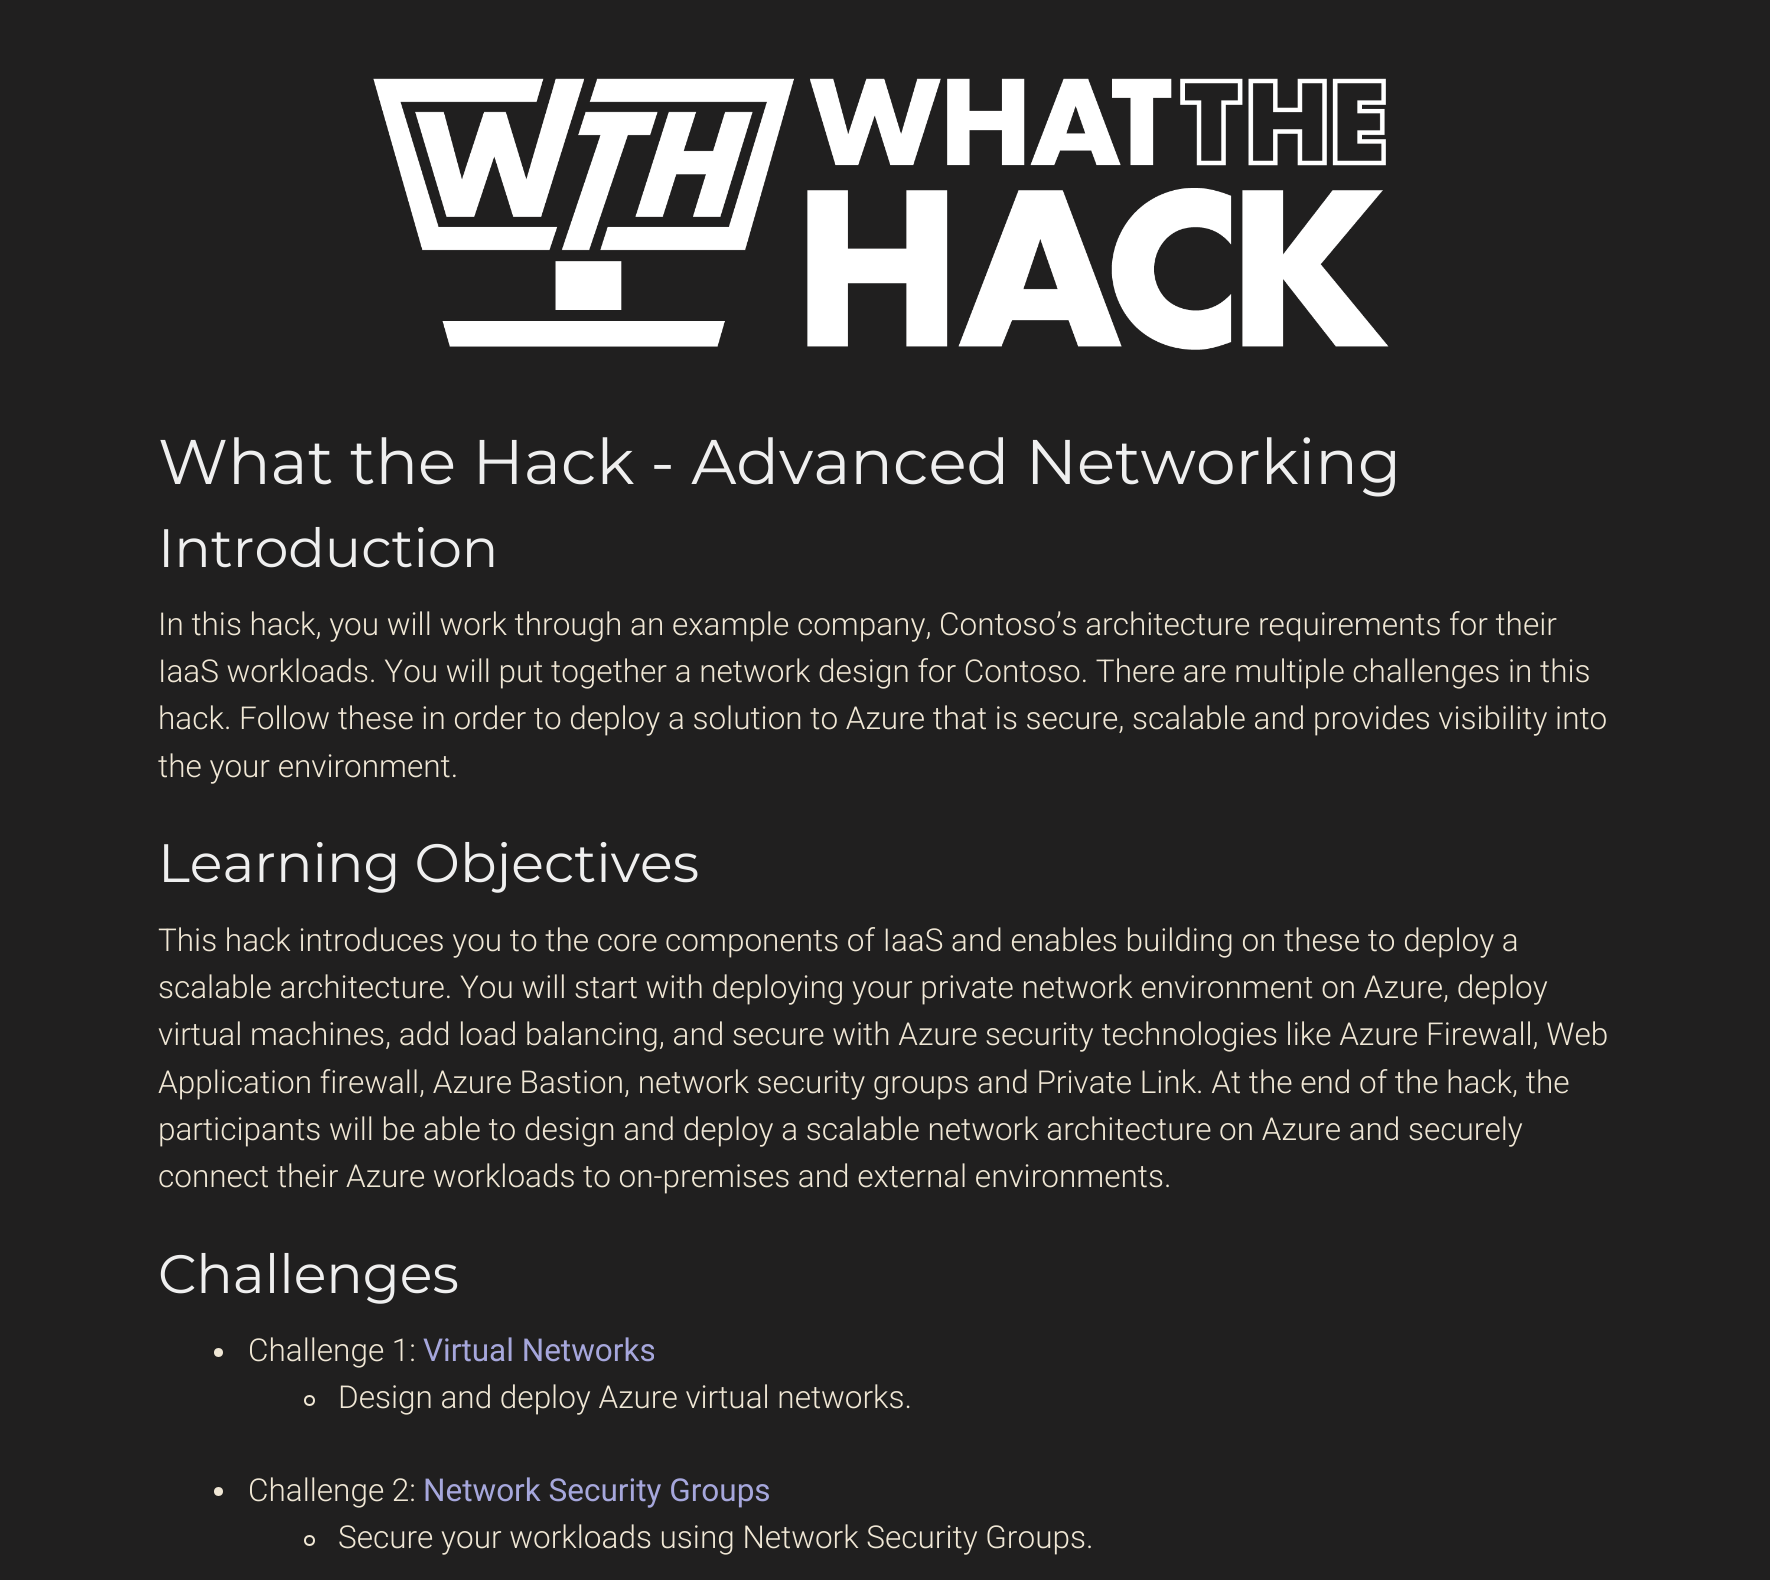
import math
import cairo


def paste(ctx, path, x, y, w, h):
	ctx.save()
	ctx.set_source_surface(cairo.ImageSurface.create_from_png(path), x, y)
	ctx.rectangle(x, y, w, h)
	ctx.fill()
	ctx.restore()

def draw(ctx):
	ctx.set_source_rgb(0.125, 0.122, 0.122)
	ctx.paint()
	paste(ctx, 'media/1.png', 373, 78, 1016, 272)
	ctx.select_font_face('Montserrat')
	ctx.set_font_size(63)
	ctx.set_source_rgb(0.937, 0.937, 0.937)
	ctx.move_to(158, 484)
	ctx.show_text('What the Hack - Advanced Networking')
	ctx.set_font_size(54)
	ctx.move_to(158, 567)
	ctx.show_text('Introduction')
	ctx.select_font_face('Roboto Light')
	ctx.set_font_size(31.5)
	ctx.set_source_rgb(0.941, 0.906, 0.835)
	for x, y, s in [
		(158, 635, 'In this hack, you will work through an example company, Contoso’s architecture requirements for their'),
		(158, 682, 'IaaS workloads. You will put together a network design for Contoso. There are multiple challenges in this'),
		(158, 729, 'hack. Follow these in order to deploy a solution to Azure that is secure, scalable and provides visibility into'),
		(158, 777, 'the your environment.'),
	]:
		ctx.move_to(x, y)
		ctx.show_text(s)
	ctx.select_font_face('Montserrat')
	ctx.set_font_size(54)
	ctx.set_source_rgb(0.937, 0.937, 0.937)
	ctx.move_to(158, 882)
	ctx.show_text('Learning Objectives')
	ctx.select_font_face('Roboto Light')
	ctx.set_font_size(31.5)
	ctx.set_source_rgb(0.941, 0.906, 0.835)
	for x, y, s in [
		(158, 951, 'This hack introduces you to the core components of IaaS and enables building on these to deploy a'),
		(158, 998, 'scalable architecture. You will start with deploying your private network environment on Azure, deploy'),
		(158, 1045, 'virtual machines, add load balancing, and secure with Azure security technologies like Azure Firewall, Web'),
		(158, 1093, 'Application firewall, Azure Bastion, network security groups and Private Link. At the end of the hack, the'),
		(158, 1140, 'participants will be able to design and deploy a scalable network architecture on Azure and securely'),
		(158, 1187, 'connect their Azure workloads to on-premises and external environments.'),
	]:
		ctx.move_to(x, y)
		ctx.show_text(s)
	ctx.select_font_face('Montserrat')
	ctx.set_font_size(54)
	ctx.set_source_rgb(0.937, 0.937, 0.937)
	ctx.move_to(158, 1293)
	ctx.show_text('Challenges')
	ctx.set_source_rgb(0.941, 0.906, 0.835)
	ctx.new_path()
	ctx.arc(218.5, 1352.5, 4.5, 0, 2 * math.pi)
	ctx.fill()
	ctx.select_font_face('Roboto Light')
	ctx.set_font_size(31.5)
	ctx.move_to(248, 1361)
	ctx.show_text('Challenge 1:')
	ctx.select_font_face('Roboto')
	ctx.set_source_rgb(0.651, 0.655, 0.863)
	ctx.move_to(423, 1361)
	ctx.show_text('Virtual Networks')
	ctx.new_path()
	ctx.arc(309.5, 1400.5, 4.5, 0, 2 * math.pi)
	ctx.set_source_rgb(0.941, 0.906, 0.835)
	ctx.stroke()
	ctx.select_font_face('Roboto Light')
	ctx.move_to(338, 1408)
	ctx.show_text('Design and deploy Azure virtual networks.')
	ctx.new_path()
	ctx.arc(218.5, 1491.5, 4.5, 0, 2 * math.pi)
	ctx.fill()
	ctx.move_to(248, 1501)
	ctx.show_text('Challenge 2:')
	ctx.select_font_face('Roboto')
	ctx.set_source_rgb(0.651, 0.655, 0.863)
	ctx.move_to(423, 1501)
	ctx.show_text('Network Security Groups')
	ctx.new_path()
	ctx.arc(309.5, 1540.5, 4.5, 0, 2 * math.pi)
	ctx.set_source_rgb(0.941, 0.906, 0.835)
	ctx.stroke()
	ctx.select_font_face('Roboto Light')
	ctx.move_to(338, 1548)
	ctx.show_text('Secure your workloads using Network Security Groups.')


surface = cairo.ImageSurface(cairo.FORMAT_RGB24, 1770, 1580)
ctx = cairo.Context(surface)
options = cairo.FontOptions()
options.set_hint_metrics(cairo.HINT_METRICS_OFF)
options.set_hint_style(cairo.HINT_STYLE_NONE)
ctx.set_font_options(options)
ctx.set_miter_limit(4)
draw(ctx)
surface.write_to_png('image.png')
